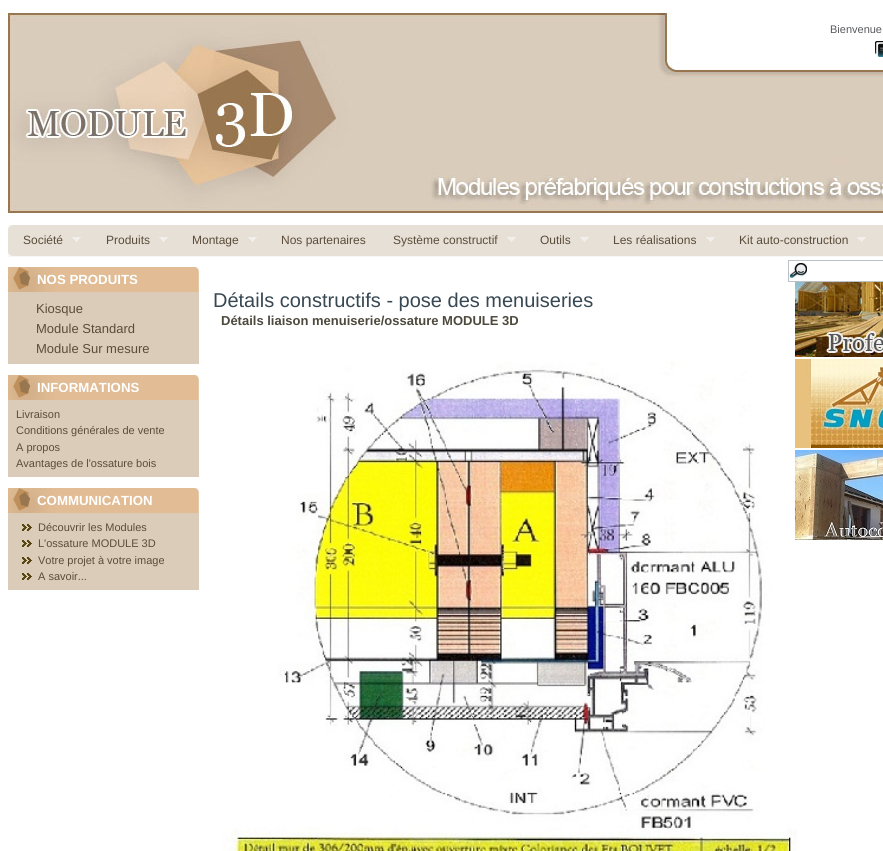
import math
import cairo


def paste(ctx, path, x, y, w, h):
	ctx.save()
	ctx.set_source_surface(cairo.ImageSurface.create_from_png(path), x, y)
	ctx.rectangle(x, y, w, h)
	ctx.fill()
	ctx.restore()

def draw(ctx):
	ctx.set_source_rgb(1, 1, 1)
	ctx.paint()
	paste(ctx, 'media/1.png', 8, 13, 875, 200)
	ctx.select_font_face('Liberation Sans')
	ctx.set_font_size(11)
	ctx.set_source_rgb(0.349, 0.353, 0.369)
	ctx.move_to(830, 33)
	ctx.show_text('Bienvenue')
	paste(ctx, 'media/2.png', 875, 41, 8, 16)
	paste(ctx, 'media/3.png', 8, 225, 875, 32)
	ctx.set_font_size(12)
	ctx.set_source_rgb(0.353, 0.298, 0.224)
	ctx.move_to(23, 244)
	ctx.show_text('Société')
	paste(ctx, 'media/4.png', 72, 237, 9, 5)
	ctx.move_to(106, 244)
	ctx.show_text('Produits')
	paste(ctx, 'media/4.png', 159, 237, 9, 5)
	ctx.move_to(192, 244)
	ctx.show_text('Montage')
	paste(ctx, 'media/4.png', 248, 237, 9, 5)
	ctx.move_to(281, 244)
	ctx.show_text('Nos partenaires')
	ctx.move_to(393, 244)
	ctx.show_text('Système constructif')
	paste(ctx, 'media/4.png', 507, 237, 9, 5)
	ctx.move_to(540, 244)
	ctx.show_text('Outils')
	paste(ctx, 'media/4.png', 580, 237, 9, 5)
	ctx.move_to(613, 244)
	ctx.show_text('Les réalisations')
	paste(ctx, 'media/4.png', 706, 237, 9, 5)
	ctx.move_to(739, 244)
	ctx.show_text('Kit auto-construction')
	paste(ctx, 'media/4.png', 857, 237, 9, 5)
	paste(ctx, 'media/5.png', 789, 263, 18, 16)
	ctx.rectangle(788.5, 260.5, 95, 21)
	ctx.set_source_rgb(0.741, 0.761, 0.788)
	ctx.set_line_width(1)
	ctx.stroke()
	ctx.set_source_rgb(0.859, 0.8, 0.725)
	ctx.rectangle(8, 292, 191, 72)
	ctx.fill()
	paste(ctx, 'media/6.png', 8, 267, 191, 25)
	ctx.select_font_face('Liberation Sans', cairo.FONT_SLANT_NORMAL, cairo.FONT_WEIGHT_BOLD)
	ctx.set_font_size(13.25)
	ctx.set_source_rgb(1, 1, 1)
	ctx.move_to(37, 284)
	ctx.show_text('NOS PRODUITS')
	ctx.select_font_face('Liberation Sans')
	ctx.set_font_size(13)
	ctx.set_source_rgb(0.353, 0.298, 0.224)
	for x, y, s in [
		(36, 313, 'Kiosque'),
		(36, 333, 'Module Standard'),
		(36, 353, 'Module Sur mesure'),
	]:
		ctx.move_to(x, y)
		ctx.show_text(s)
	ctx.set_source_rgb(0.859, 0.8, 0.725)
	ctx.rectangle(8, 400, 191, 77)
	ctx.fill()
	paste(ctx, 'media/6.png', 8, 375, 191, 25)
	ctx.select_font_face('Liberation Sans', cairo.FONT_SLANT_NORMAL, cairo.FONT_WEIGHT_BOLD)
	ctx.set_font_size(13.25)
	ctx.set_source_rgb(1, 1, 1)
	ctx.move_to(37, 392)
	ctx.show_text('INFORMATIONS')
	ctx.select_font_face('Liberation Sans')
	ctx.set_font_size(11)
	ctx.set_source_rgb(0.353, 0.298, 0.224)
	for x, y, s in [
		(16, 418, 'Livraison'),
		(16, 434, 'Conditions générales de vente'),
		(16, 451, 'A propos'),
		(16, 467, 'Avantages de l\'ossature bois'),
	]:
		ctx.move_to(x, y)
		ctx.show_text(s)
	ctx.set_source_rgb(0.859, 0.8, 0.725)
	ctx.rectangle(8, 513, 191, 77)
	ctx.fill()
	paste(ctx, 'media/6.png', 8, 488, 191, 25)
	ctx.select_font_face('Liberation Sans', cairo.FONT_SLANT_NORMAL, cairo.FONT_WEIGHT_BOLD)
	ctx.set_font_size(13.25)
	ctx.set_source_rgb(1, 1, 1)
	ctx.move_to(37, 505)
	ctx.show_text('COMMUNICATION')
	paste(ctx, 'media/7.png', 22, 524, 10, 7)
	ctx.select_font_face('Liberation Sans')
	ctx.set_font_size(11)
	ctx.set_source_rgb(0.353, 0.298, 0.224)
	ctx.move_to(38, 531)
	ctx.show_text('Découvrir les Modules')
	paste(ctx, 'media/7.png', 22, 540, 10, 7)
	ctx.move_to(38, 547)
	ctx.show_text('L\'ossature MODULE 3D')
	paste(ctx, 'media/7.png', 22, 557, 10, 7)
	ctx.move_to(38, 564)
	ctx.show_text('Votre projet à votre image')
	paste(ctx, 'media/7.png', 22, 573, 10, 7)
	ctx.move_to(38, 580)
	ctx.show_text('A savoir...')
	ctx.set_font_size(20)
	ctx.set_source_rgb(0.216, 0.282, 0.325)
	ctx.move_to(213, 307)
	ctx.show_text('Détails constructifs - pose des menuiseries')
	ctx.select_font_face('Liberation Sans', cairo.FONT_SLANT_NORMAL, cairo.FONT_WEIGHT_BOLD)
	ctx.set_font_size(13)
	ctx.set_source_rgb(0.302, 0.286, 0.235)
	ctx.move_to(221, 325)
	ctx.show_text('Détails liaison menuiserie/ossature MODULE 3D')
	paste(ctx, 'media/8.png', 221, 361, 576, 490)
	paste(ctx, 'media/9.png', 795, 282, 88, 75)
	paste(ctx, 'media/10.png', 795, 359, 88, 89)
	paste(ctx, 'media/11.png', 795, 450, 88, 90)


surface = cairo.ImageSurface(cairo.FORMAT_RGB24, 883, 851)
ctx = cairo.Context(surface)
options = cairo.FontOptions()
options.set_hint_metrics(cairo.HINT_METRICS_OFF)
options.set_hint_style(cairo.HINT_STYLE_NONE)
ctx.set_font_options(options)
ctx.set_miter_limit(4)
draw(ctx)
surface.write_to_png('image.png')
